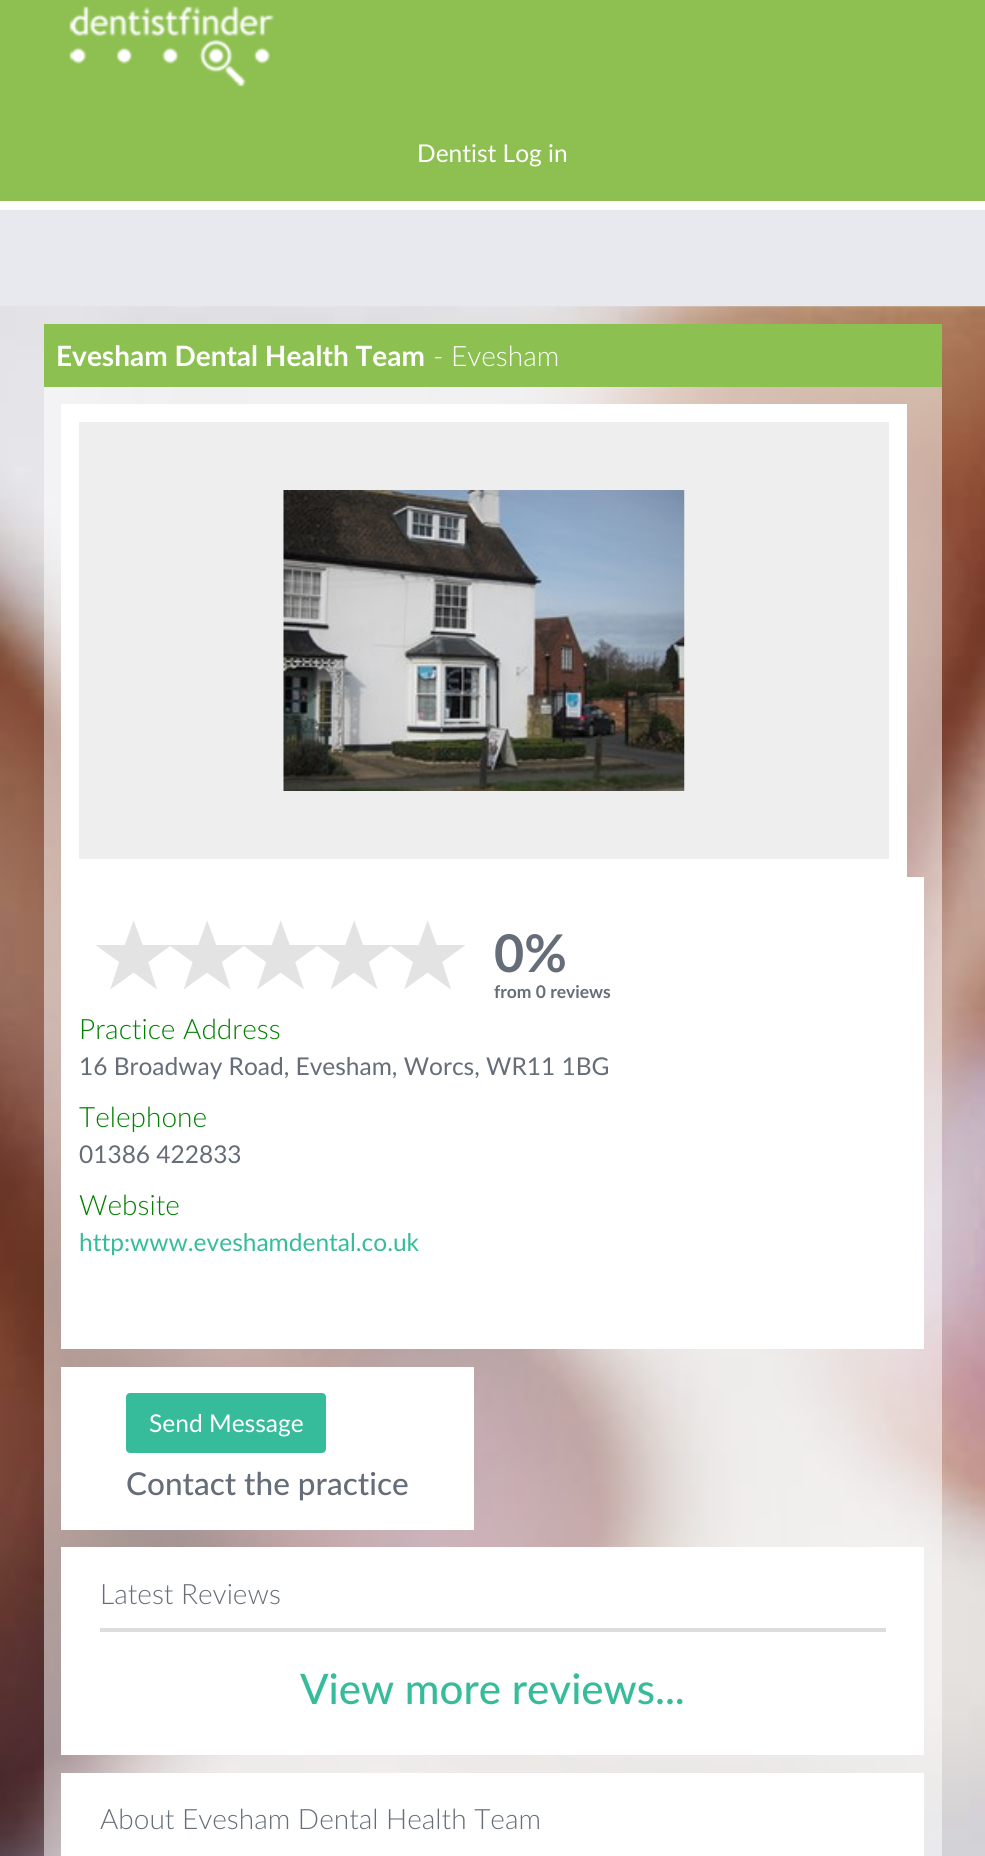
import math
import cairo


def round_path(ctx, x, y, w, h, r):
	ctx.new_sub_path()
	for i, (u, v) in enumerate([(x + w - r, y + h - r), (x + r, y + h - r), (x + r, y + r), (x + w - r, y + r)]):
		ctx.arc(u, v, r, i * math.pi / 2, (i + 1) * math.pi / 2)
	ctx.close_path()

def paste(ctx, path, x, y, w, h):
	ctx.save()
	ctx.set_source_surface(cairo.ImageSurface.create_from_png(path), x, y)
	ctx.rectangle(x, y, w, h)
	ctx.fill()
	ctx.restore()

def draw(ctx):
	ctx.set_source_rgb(1, 1, 1)
	ctx.paint()
	ctx.set_source_rgb(0.91, 0.914, 0.933)
	ctx.rectangle(0, 210, 985, 97)
	ctx.fill()
	ctx.set_source_rgb(0.557, 0.753, 0.318)
	ctx.rectangle(0, 0, 985, 201)
	ctx.fill()
	paste(ctx, 'media/1.png', 69, 6, 205, 81)
	ctx.select_font_face('Lato')
	ctx.set_font_size(24.5)
	ctx.set_source_rgb(1, 1, 1)
	ctx.move_to(417, 162)
	ctx.show_text('Dentist Log in')
	paste(ctx, 'media/2.png', 0, 306, 985, 1550)
	ctx.set_source_rgb(0.549, 0.757, 0.322)
	ctx.rectangle(44, 324, 898, 63)
	ctx.fill()
	ctx.select_font_face('Lato', cairo.FONT_SLANT_NORMAL, cairo.FONT_WEIGHT_BOLD)
	ctx.set_font_size(28)
	ctx.set_source_rgb(1, 1, 1)
	ctx.move_to(56, 366)
	ctx.show_text('Evesham Dental Health Team')
	ctx.select_font_face('Lato Light')
	ctx.move_to(433, 366)
	ctx.show_text('- Evesham')
	ctx.set_source_rgba(1, 1, 1, 0.52)
	ctx.rectangle(44, 387, 898, 1469)
	ctx.fill()
	ctx.set_source_rgb(1, 1, 1)
	ctx.rectangle(61, 404, 846, 473)
	ctx.fill()
	ctx.set_source_rgb(0.933, 0.933, 0.933)
	ctx.rectangle(79, 422, 810, 437)
	ctx.fill()
	paste(ctx, 'media/3.png', 283, 490, 402, 301)
	ctx.set_source_rgb(1, 1, 1)
	ctx.rectangle(61, 877, 863, 472)
	ctx.fill()
	paste(ctx, 'media/4.png', 96, 920, 369, 70)
	ctx.select_font_face('Lato', cairo.FONT_SLANT_NORMAL, cairo.FONT_WEIGHT_BOLD)
	ctx.set_font_size(52)
	ctx.set_source_rgb(0.396, 0.427, 0.471)
	ctx.move_to(494, 972)
	ctx.show_text('0%')
	ctx.set_font_size(17.5)
	ctx.move_to(494, 998)
	ctx.show_text('from 0 reviews')
	ctx.select_font_face('Lato Light')
	ctx.set_font_size(28)
	ctx.set_source_rgb(0, 0.502, 0)
	ctx.move_to(79, 1039)
	ctx.show_text('Practice Address')
	ctx.select_font_face('Lato')
	ctx.set_font_size(24.5)
	ctx.set_source_rgb(0.396, 0.427, 0.471)
	ctx.move_to(79, 1075)
	ctx.show_text('16 Broadway Road, Evesham, Worcs, WR11 1BG')
	ctx.select_font_face('Lato Light')
	ctx.set_font_size(28)
	ctx.set_source_rgb(0, 0.502, 0)
	ctx.move_to(79, 1127)
	ctx.show_text('Telephone')
	ctx.select_font_face('Lato')
	ctx.set_font_size(24.5)
	ctx.set_source_rgb(0.396, 0.427, 0.471)
	ctx.move_to(79, 1163)
	ctx.show_text('01386 422833')
	ctx.select_font_face('Lato Light')
	ctx.set_font_size(28)
	ctx.set_source_rgb(0, 0.502, 0)
	ctx.move_to(79, 1215)
	ctx.show_text('Website')
	ctx.select_font_face('Lato')
	ctx.set_font_size(24.5)
	ctx.set_source_rgb(0.216, 0.737, 0.608)
	ctx.move_to(79, 1251)
	ctx.show_text('http:www.eveshamdental.co.uk')
	ctx.set_source_rgb(1, 1, 1)
	ctx.rectangle(61, 1367, 413, 163)
	ctx.fill()
	ctx.set_source_rgb(0.216, 0.737, 0.608)
	round_path(ctx, 127, 1394, 198, 58, 3)
	ctx.fill_preserve()
	ctx.stroke()
	ctx.set_source_rgb(1, 1, 1)
	ctx.move_to(149, 1432)
	ctx.show_text('Send Message')
	ctx.select_font_face('Lato Medium')
	ctx.set_font_size(31.5)
	ctx.set_source_rgb(0.396, 0.427, 0.471)
	ctx.move_to(126, 1495)
	ctx.show_text('Contact the practice')
	ctx.set_source_rgb(1, 1, 1)
	ctx.rectangle(61, 1547, 863, 208)
	ctx.fill()
	ctx.select_font_face('Lato Light')
	ctx.set_font_size(28)
	ctx.set_source_rgb(0.396, 0.427, 0.471)
	ctx.move_to(100, 1604)
	ctx.show_text('Latest Reviews')
	ctx.set_source_rgb(0.867, 0.867, 0.867)
	ctx.rectangle(100, 1628, 786, 4)
	ctx.fill()
	ctx.select_font_face('Lato Medium')
	ctx.set_font_size(42)
	ctx.set_source_rgb(0.216, 0.737, 0.608)
	ctx.move_to(300, 1704)
	ctx.show_text('View more reviews...')
	ctx.set_source_rgb(1, 1, 1)
	ctx.rectangle(61, 1773, 863, 83)
	ctx.fill()
	ctx.select_font_face('Lato Light')
	ctx.set_font_size(28)
	ctx.set_source_rgb(0.396, 0.427, 0.471)
	ctx.move_to(100, 1829)
	ctx.show_text('About Evesham Dental Health Team')


surface = cairo.ImageSurface(cairo.FORMAT_RGB24, 985, 1856)
ctx = cairo.Context(surface)
options = cairo.FontOptions()
options.set_hint_metrics(cairo.HINT_METRICS_OFF)
options.set_hint_style(cairo.HINT_STYLE_NONE)
ctx.set_font_options(options)
ctx.set_miter_limit(4)
draw(ctx)
surface.write_to_png('image.png')
